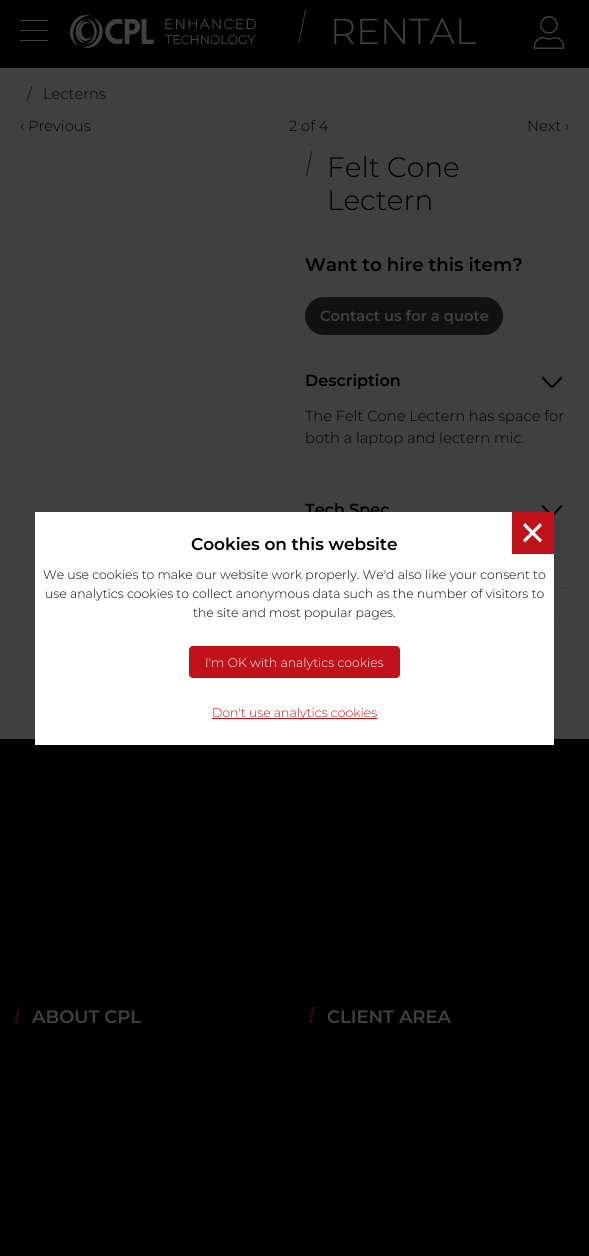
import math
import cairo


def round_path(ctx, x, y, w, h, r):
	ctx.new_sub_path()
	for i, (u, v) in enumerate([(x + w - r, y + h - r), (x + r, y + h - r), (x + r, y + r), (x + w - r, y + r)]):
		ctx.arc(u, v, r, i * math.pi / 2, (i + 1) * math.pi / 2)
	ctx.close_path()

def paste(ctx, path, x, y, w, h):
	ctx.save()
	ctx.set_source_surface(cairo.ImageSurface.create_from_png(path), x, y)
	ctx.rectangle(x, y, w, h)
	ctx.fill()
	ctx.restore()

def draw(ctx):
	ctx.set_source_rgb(0.251, 0.251, 0.251)
	ctx.paint()
	ctx.set_source_rgb(0, 0, 0)
	ctx.rectangle(0, 0, 589, 68)
	ctx.fill()
	ctx.set_source_rgb(0.251, 0.251, 0.251)
	ctx.rectangle(20, 30, 28, 1)
	ctx.rectangle(20, 20, 28, 1)
	ctx.rectangle(20, 40, 28, 1)
	ctx.fill()
	paste(ctx, 'media/1.png', 70, 15, 187, 33)
	ctx.new_path()
	ctx.move_to(305, 10)
	ctx.line_to(306, 10)
	ctx.line_to(299.5, 42.5)
	ctx.line_to(298.5, 42.5)
	ctx.close_path()
	ctx.fill()
	ctx.select_font_face('Montserrat Light')
	ctx.set_font_size(36)
	ctx.move_to(330, 44)
	ctx.show_text('RENTAL')
	paste(ctx, 'media/2.png', 533, 16, 32, 33)
	ctx.set_font_size(14.7)
	ctx.set_source_rgb(0, 0, 0)
	for x, y, s in [
		(27, 99, '/'),
		(43, 99, 'Lecterns'),
		(20, 131, '‹ Previous'),
		(289, 131, '2 of 4'),
		(527, 131, 'Next ›'),
	]:
		ctx.move_to(x, y)
		ctx.show_text(s)
	ctx.set_source_rgb(0.188, 0.02, 0.027)
	ctx.new_path()
	ctx.move_to(311.5, 150.5)
	ctx.line_to(312.5, 150.5)
	ctx.line_to(307, 175.5)
	ctx.line_to(306, 175.5)
	ctx.close_path()
	ctx.fill()
	ctx.set_font_size(28)
	ctx.set_source_rgb(0, 0, 0)
	ctx.move_to(327, 177)
	ctx.show_text('Felt Cone')
	ctx.move_to(327, 210)
	ctx.show_text('Lectern')
	ctx.select_font_face('Montserrat SemiBold')
	ctx.set_font_size(18.25)
	ctx.move_to(305, 271)
	ctx.show_text('Want to hire this item?')
	ctx.set_source_rgb(0.067, 0.067, 0.067)
	round_path(ctx, 305, 297, 198, 38, 19)
	ctx.fill()
	ctx.set_font_size(14.7)
	ctx.set_source_rgb(0.251, 0.251, 0.251)
	ctx.move_to(320, 321)
	ctx.show_text('Contact us for a quote')
	ctx.set_font_size(16)
	ctx.set_source_rgb(0, 0, 0)
	ctx.move_to(305, 386)
	ctx.show_text('Description')
	ctx.new_path()
	ctx.move_to(561, 376.5)
	ctx.line_to(562.5, 378)
	ctx.line_to(553, 388)
	ctx.line_to(551.5, 386.5)
	ctx.close_path()
	ctx.fill()
	ctx.new_path()
	ctx.move_to(541.5, 378)
	ctx.line_to(543, 376.5)
	ctx.line_to(552.5, 386.5)
	ctx.line_to(551, 388)
	ctx.close_path()
	ctx.fill()
	ctx.select_font_face('Montserrat Light')
	ctx.set_font_size(14.7)
	ctx.move_to(305, 421)
	ctx.show_text('The Felt Cone Lectern has space for')
	ctx.move_to(305, 443)
	ctx.show_text('both a laptop and lectern mic.')
	ctx.select_font_face('Montserrat SemiBold')
	ctx.set_font_size(16)
	ctx.move_to(305, 515)
	ctx.show_text('Tech Spec')
	ctx.new_path()
	ctx.move_to(561, 505)
	ctx.line_to(562.5, 506.5)
	ctx.line_to(553, 516.5)
	ctx.line_to(551.5, 515)
	ctx.close_path()
	ctx.fill()
	ctx.new_path()
	ctx.move_to(541.5, 506.5)
	ctx.line_to(543, 505)
	ctx.line_to(552.5, 515)
	ctx.line_to(551, 516.5)
	ctx.close_path()
	ctx.fill()
	ctx.set_source_rgb(0.227, 0.227, 0.227)
	ctx.rectangle(554, 587, 13, 1)
	ctx.rectangle(554, 623, 13, 1)
	ctx.fill()
	ctx.set_source_rgb(0, 0, 0)
	ctx.rectangle(0, 739, 589, 517)
	ctx.fill()
	ctx.set_source_rgb(0.188, 0.02, 0.027)
	ctx.new_path()
	ctx.move_to(17.5, 1007)
	ctx.line_to(20.5, 1007)
	ctx.line_to(17, 1023)
	ctx.line_to(14, 1023)
	ctx.close_path()
	ctx.fill()
	ctx.set_font_size(18)
	ctx.set_source_rgb(0.251, 0.251, 0.251)
	ctx.move_to(32, 1023)
	ctx.show_text('ABOUT CPL')
	ctx.set_source_rgb(0.188, 0.02, 0.027)
	ctx.new_path()
	ctx.move_to(312, 1007)
	ctx.line_to(315, 1007)
	ctx.line_to(311.5, 1023)
	ctx.line_to(308.5, 1023)
	ctx.close_path()
	ctx.fill()
	ctx.set_source_rgb(0.251, 0.251, 0.251)
	ctx.move_to(327, 1023)
	ctx.show_text('CLIENT AREA')
	ctx.set_source_rgb(1, 1, 1)
	ctx.rectangle(35, 512, 519, 233)
	ctx.fill()
	ctx.set_font_size(16.9)
	ctx.set_source_rgb(0, 0, 0)
	ctx.move_to(191, 550)
	ctx.show_text('Cookies on this website')
	ctx.set_source_rgb(0.749, 0.071, 0.102)
	ctx.rectangle(512, 512, 42, 42)
	ctx.fill()
	ctx.set_source_rgb(1, 1, 1)
	ctx.new_path()
	ctx.move_to(540, 523)
	ctx.line_to(542, 525.5)
	ctx.line_to(525, 542.5)
	ctx.line_to(523, 540)
	ctx.close_path()
	ctx.fill()
	ctx.new_path()
	ctx.move_to(523, 525.5)
	ctx.line_to(525, 523)
	ctx.line_to(542, 540)
	ctx.line_to(540, 542.5)
	ctx.close_path()
	ctx.fill()
	ctx.select_font_face('Montserrat Light')
	ctx.set_font_size(12.45)
	ctx.set_source_rgb(0, 0, 0)
	for x, y, s in [
		(43, 579, 'We use cookies to make our website work properly. We\'d also like your consent to'),
		(45, 598, 'use analytics cookies to collect anonymous data such as the number of visitors to'),
		(193, 617, 'the site and most popular pages.'),
	]:
		ctx.move_to(x, y)
		ctx.show_text(s)
	ctx.set_source_rgb(0.749, 0.071, 0.102)
	round_path(ctx, 189.5, 646.5, 210, 31, 3.5)
	ctx.fill_preserve()
	ctx.set_line_width(1)
	ctx.stroke()
	ctx.set_source_rgb(1, 1, 1)
	ctx.move_to(205, 667)
	ctx.show_text('I\'m OK with analytics cookies')
	ctx.set_source_rgb(0.749, 0.071, 0.102)
	ctx.rectangle(212, 718, 165, 1)
	ctx.fill()
	ctx.move_to(212, 717)
	ctx.show_text('Don\'t use analytics cookies')


surface = cairo.ImageSurface(cairo.FORMAT_RGB24, 589, 1256)
ctx = cairo.Context(surface)
options = cairo.FontOptions()
options.set_hint_metrics(cairo.HINT_METRICS_OFF)
options.set_hint_style(cairo.HINT_STYLE_NONE)
ctx.set_font_options(options)
ctx.set_miter_limit(4)
draw(ctx)
surface.write_to_png('image.png')
